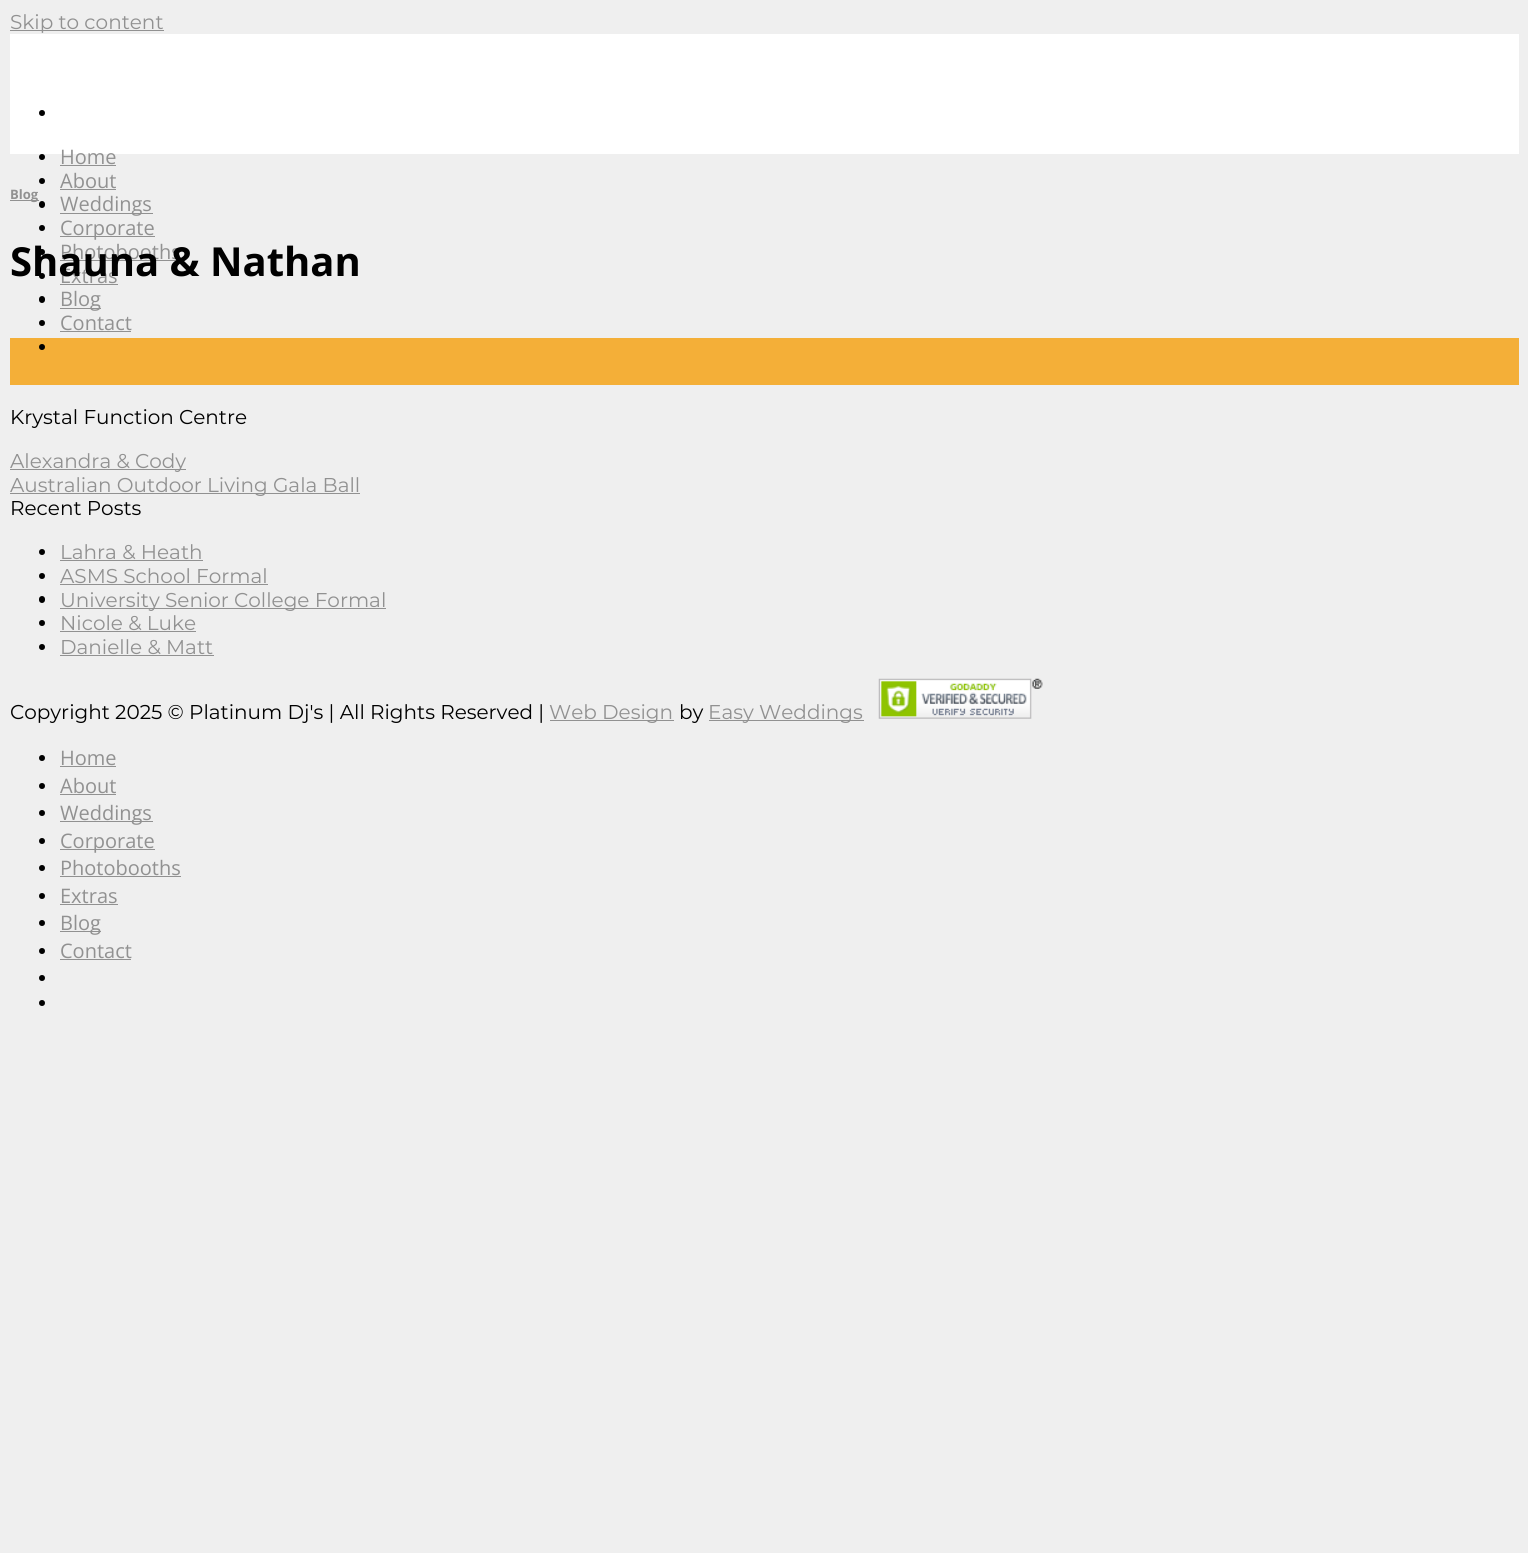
import math
import cairo


def round_path(ctx, x, y, w, h, r):
	ctx.new_sub_path()
	for i, (u, v) in enumerate([(x + w - r, y + h - r), (x + r, y + h - r), (x + r, y + r), (x + w - r, y + r)]):
		ctx.arc(u, v, r, i * math.pi / 2, (i + 1) * math.pi / 2)
	ctx.close_path()

def paste(ctx, path, x, y, w, h):
	ctx.save()
	ctx.set_source_surface(cairo.ImageSurface.create_from_png(path), x, y)
	ctx.rectangle(x, y, w, h)
	ctx.fill()
	ctx.restore()

def draw(ctx):
	ctx.set_source_rgb(0.937, 0.937, 0.937)
	ctx.paint()
	ctx.set_source_rgb(0.569, 0.569, 0.569)
	ctx.rectangle(10, 30, 154, 1)
	ctx.fill()
	ctx.select_font_face('Montserrat Thin')
	ctx.set_font_size(20)
	ctx.move_to(10, 29)
	ctx.show_text('Skip to content')
	ctx.set_source_rgb(1, 1, 1)
	ctx.rectangle(10, 34, 1509, 120)
	ctx.fill()
	ctx.set_source_rgb(0, 0, 0)
	ctx.arc(42, 113, 3, 0, 2 * math.pi)
	ctx.fill()
	ctx.arc(42, 157, 3, 0, 2 * math.pi)
	ctx.fill()
	ctx.select_font_face('Open Sans')
	ctx.set_source_rgb(0.569, 0.569, 0.569)
	ctx.move_to(60, 164)
	ctx.show_text('Home')
	ctx.rectangle(60, 165, 56, 1)
	ctx.fill()
	ctx.set_source_rgb(0, 0, 0)
	ctx.arc(42, 181, 3, 0, 2 * math.pi)
	ctx.fill()
	ctx.set_source_rgb(0.569, 0.569, 0.569)
	ctx.move_to(60, 188)
	ctx.show_text('About')
	ctx.rectangle(60, 189, 56, 1)
	ctx.fill()
	ctx.set_source_rgb(0, 0, 0)
	round_path(ctx, 39, 201, 6, 7, 3)
	ctx.fill()
	ctx.set_source_rgb(0.569, 0.569, 0.569)
	ctx.rectangle(60, 213, 93, 1)
	ctx.fill()
	ctx.move_to(60, 211)
	ctx.show_text('Weddings')
	ctx.set_source_rgb(0, 0, 0)
	ctx.new_path()
	ctx.arc(42, 228, 3, 0, 2 * math.pi)
	ctx.fill()
	ctx.set_source_rgb(0.569, 0.569, 0.569)
	ctx.rectangle(60, 236, 95, 1)
	ctx.fill()
	ctx.move_to(60, 235)
	ctx.show_text('Corporate')
	ctx.set_source_rgb(0, 0, 0)
	ctx.new_path()
	ctx.arc(42, 252, 3, 0, 2 * math.pi)
	ctx.fill()
	ctx.set_source_rgb(0.569, 0.569, 0.569)
	ctx.move_to(60, 259)
	ctx.show_text('Photobooths')
	ctx.rectangle(60, 260, 121, 1)
	ctx.fill()
	ctx.set_source_rgb(0, 0, 0)
	ctx.arc(42, 276, 3, 0, 2 * math.pi)
	ctx.fill()
	ctx.set_source_rgb(0.569, 0.569, 0.569)
	ctx.move_to(60, 283)
	ctx.show_text('Extras')
	ctx.rectangle(60, 284, 58, 1)
	ctx.fill()
	ctx.set_source_rgb(0, 0, 0)
	round_path(ctx, 39, 296, 6, 7, 3)
	ctx.fill()
	ctx.set_source_rgb(0.569, 0.569, 0.569)
	ctx.rectangle(60, 308, 41, 1)
	ctx.fill()
	ctx.move_to(60, 306)
	ctx.show_text('Blog')
	ctx.set_source_rgb(0, 0, 0)
	ctx.new_path()
	ctx.arc(42, 323, 3, 0, 2 * math.pi)
	ctx.fill()
	ctx.set_source_rgb(0.569, 0.569, 0.569)
	ctx.move_to(60, 330)
	ctx.show_text('Contact')
	ctx.rectangle(60, 331, 71, 1)
	ctx.fill()
	ctx.set_source_rgb(0.957, 0.686, 0.22)
	ctx.rectangle(10, 338, 1509, 47)
	ctx.fill()
	ctx.set_source_rgb(0, 0, 0)
	ctx.arc(42, 347, 3, 0, 2 * math.pi)
	ctx.fill()
	ctx.set_source_rgb(0.569, 0.569, 0.569)
	ctx.rectangle(10, 200, 29, 1)
	ctx.fill()
	ctx.select_font_face('Open Sans', cairo.FONT_SLANT_NORMAL, cairo.FONT_WEIGHT_BOLD)
	ctx.set_font_size(13)
	ctx.move_to(10, 199)
	ctx.show_text('Blog')
	ctx.set_font_size(40)
	ctx.set_source_rgb(0, 0, 0)
	ctx.move_to(10, 276)
	ctx.show_text('Shauna & Nathan')
	ctx.select_font_face('Montserrat Thin')
	ctx.set_font_size(20)
	ctx.move_to(10, 424)
	ctx.show_text('Krystal Function Centre')
	ctx.set_source_rgb(0.569, 0.569, 0.569)
	ctx.rectangle(10, 469, 176, 1)
	ctx.fill()
	ctx.move_to(10, 468)
	ctx.show_text('Alexandra & Cody')
	ctx.rectangle(10, 493, 350, 1)
	ctx.fill()
	ctx.move_to(10, 492)
	ctx.show_text('Australian Outdoor Living Gala Ball')
	ctx.set_source_rgb(0, 0, 0)
	ctx.move_to(10, 515)
	ctx.show_text('Recent Posts')
	ctx.new_path()
	ctx.arc(42, 552, 3, 0, 2 * math.pi)
	ctx.fill()
	ctx.set_source_rgb(0.569, 0.569, 0.569)
	ctx.move_to(60, 559)
	ctx.show_text('Lahra & Heath')
	ctx.rectangle(60, 560, 143, 1)
	ctx.fill()
	ctx.set_source_rgb(0, 0, 0)
	ctx.arc(42, 576, 3, 0, 2 * math.pi)
	ctx.fill()
	ctx.set_source_rgb(0.569, 0.569, 0.569)
	ctx.move_to(60, 583)
	ctx.show_text('ASMS School Formal')
	ctx.rectangle(60, 584, 208, 1)
	ctx.fill()
	ctx.set_source_rgb(0, 0, 0)
	round_path(ctx, 39, 596, 6, 7, 3)
	ctx.fill()
	ctx.set_source_rgb(0.569, 0.569, 0.569)
	ctx.rectangle(60, 608, 326, 1)
	ctx.fill()
	ctx.move_to(60, 607)
	ctx.show_text('University Senior College Formal')
	ctx.set_source_rgb(0, 0, 0)
	ctx.new_path()
	ctx.arc(42, 623, 3, 0, 2 * math.pi)
	ctx.fill()
	ctx.set_source_rgb(0.569, 0.569, 0.569)
	ctx.move_to(60, 630)
	ctx.show_text('Nicole & Luke')
	ctx.rectangle(60, 631, 136, 1)
	ctx.fill()
	ctx.set_source_rgb(0, 0, 0)
	ctx.arc(42, 647, 3, 0, 2 * math.pi)
	ctx.fill()
	ctx.set_source_rgb(0.569, 0.569, 0.569)
	ctx.move_to(60, 654)
	ctx.show_text('Danielle & Matt')
	ctx.rectangle(60, 655, 154, 1)
	ctx.fill()
	ctx.set_source_rgb(0, 0, 0)
	ctx.move_to(10, 719)
	ctx.show_text('Copyright 2025 © Platinum Dj\'s | All Rights Reserved |')
	ctx.set_source_rgb(0.569, 0.569, 0.569)
	ctx.rectangle(550, 720, 124, 1)
	ctx.fill()
	ctx.move_to(549, 719)
	ctx.show_text('Web Design')
	ctx.set_source_rgb(0, 0, 0)
	ctx.move_to(679, 719)
	ctx.show_text('by')
	ctx.set_source_rgb(0.569, 0.569, 0.569)
	ctx.rectangle(709, 720, 155, 1)
	ctx.fill()
	ctx.move_to(708, 719)
	ctx.show_text('Easy Weddings')
	paste(ctx, 'media/1.png', 878, 678, 165, 41)
	ctx.set_source_rgb(0, 0, 0)
	ctx.arc(42, 758, 3, 0, 2 * math.pi)
	ctx.fill()
	ctx.select_font_face('Open Sans')
	ctx.set_source_rgb(0.569, 0.569, 0.569)
	ctx.move_to(60, 765)
	ctx.show_text('Home')
	ctx.rectangle(60, 766, 56, 1)
	ctx.fill()
	ctx.set_source_rgb(0, 0, 0)
	ctx.arc(42, 786, 3, 0, 2 * math.pi)
	ctx.fill()
	ctx.set_source_rgb(0.569, 0.569, 0.569)
	ctx.move_to(60, 793)
	ctx.show_text('About')
	ctx.rectangle(60, 794, 56, 1)
	ctx.fill()
	ctx.set_source_rgb(0, 0, 0)
	ctx.arc(42, 813, 3, 0, 2 * math.pi)
	ctx.fill()
	ctx.set_source_rgb(0.569, 0.569, 0.569)
	ctx.rectangle(60, 821, 93, 1)
	ctx.fill()
	ctx.move_to(60, 820)
	ctx.show_text('Weddings')
	ctx.set_source_rgb(0, 0, 0)
	ctx.new_path()
	ctx.arc(42, 841, 3, 0, 2 * math.pi)
	ctx.fill()
	ctx.set_source_rgb(0.569, 0.569, 0.569)
	ctx.rectangle(60, 849, 95, 1)
	ctx.fill()
	ctx.move_to(60, 848)
	ctx.show_text('Corporate')
	ctx.set_source_rgb(0, 0, 0)
	ctx.new_path()
	ctx.arc(42, 868, 3, 0, 2 * math.pi)
	ctx.fill()
	ctx.set_source_rgb(0.569, 0.569, 0.569)
	ctx.move_to(60, 875)
	ctx.show_text('Photobooths')
	ctx.rectangle(60, 876, 121, 1)
	ctx.fill()
	ctx.set_source_rgb(0, 0, 0)
	ctx.arc(42, 896, 3, 0, 2 * math.pi)
	ctx.fill()
	ctx.set_source_rgb(0.569, 0.569, 0.569)
	ctx.move_to(60, 903)
	ctx.show_text('Extras')
	ctx.rectangle(60, 904, 58, 1)
	ctx.fill()
	ctx.set_source_rgb(0, 0, 0)
	ctx.arc(42, 923, 3, 0, 2 * math.pi)
	ctx.fill()
	ctx.set_source_rgb(0.569, 0.569, 0.569)
	ctx.rectangle(60, 931, 41, 1)
	ctx.fill()
	ctx.move_to(60, 930)
	ctx.show_text('Blog')
	ctx.set_source_rgb(0, 0, 0)
	ctx.new_path()
	ctx.arc(42, 951, 3, 0, 2 * math.pi)
	ctx.fill()
	ctx.set_source_rgb(0.569, 0.569, 0.569)
	ctx.move_to(60, 958)
	ctx.show_text('Contact')
	ctx.rectangle(60, 959, 71, 1)
	ctx.fill()
	ctx.set_source_rgb(0, 0, 0)
	ctx.arc(42, 978, 3, 0, 2 * math.pi)
	ctx.fill()
	ctx.arc(42, 1003, 3, 0, 2 * math.pi)
	ctx.fill()


surface = cairo.ImageSurface(cairo.FORMAT_RGB24, 1528, 1553)
ctx = cairo.Context(surface)
options = cairo.FontOptions()
options.set_hint_metrics(cairo.HINT_METRICS_OFF)
options.set_hint_style(cairo.HINT_STYLE_NONE)
ctx.set_font_options(options)
ctx.set_miter_limit(4)
draw(ctx)
surface.write_to_png('image.png')
